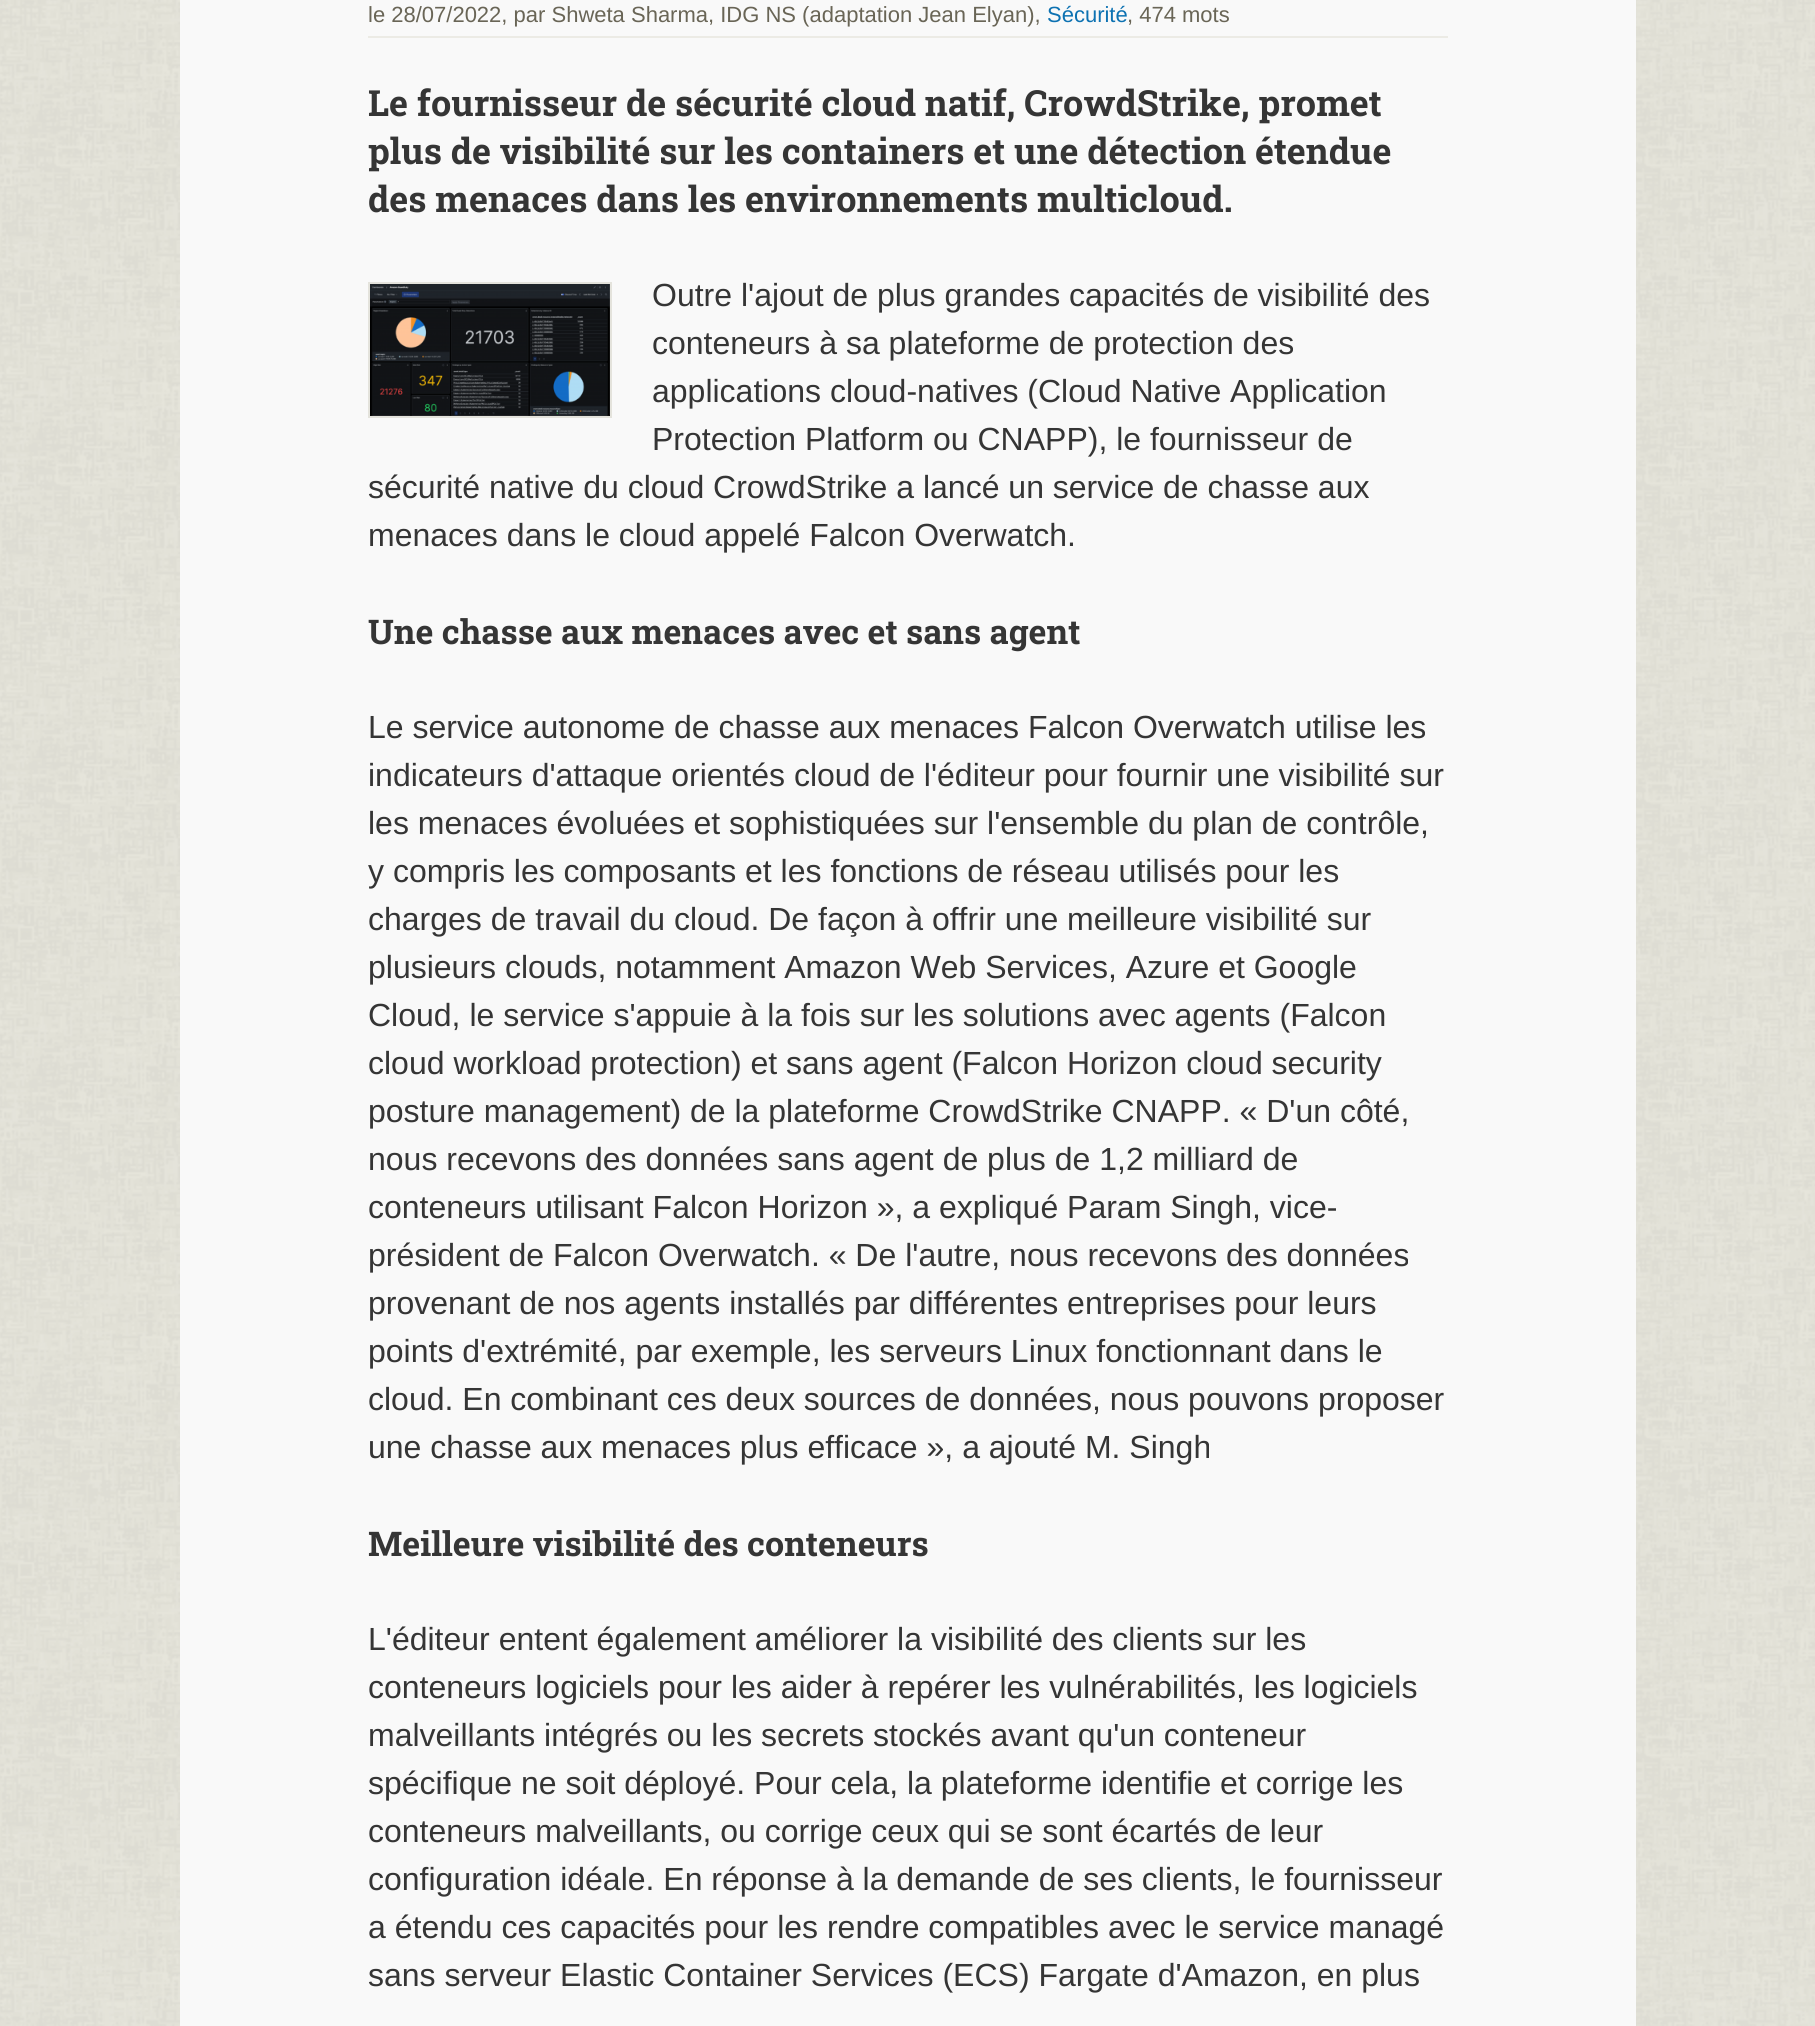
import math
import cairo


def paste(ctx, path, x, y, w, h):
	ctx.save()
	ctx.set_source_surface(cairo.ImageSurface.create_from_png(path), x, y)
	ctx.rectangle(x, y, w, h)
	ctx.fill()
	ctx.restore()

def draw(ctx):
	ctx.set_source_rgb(1, 1, 1)
	ctx.paint()
	paste(ctx, 'media/1.png', 0, 0, 1815, 2026)
	ctx.set_source_rgb(0.976, 0.976, 0.976)
	ctx.rectangle(180, 0, 1456, 2026)
	ctx.fill()
	ctx.set_source_rgb(0.922, 0.918, 0.898)
	ctx.rectangle(368, 36, 1080, 2)
	ctx.fill()
	ctx.select_font_face('Liberation Sans')
	ctx.set_font_size(22)
	ctx.set_source_rgb(0.412, 0.396, 0.337)
	ctx.move_to(368, 22)
	ctx.show_text('le 28/07/2022, par Shweta Sharma, IDG NS (adaptation Jean Elyan),')
	ctx.set_source_rgb(0.051, 0.447, 0.698)
	ctx.move_to(1047, 22)
	ctx.show_text('Sécurité')
	ctx.set_source_rgb(0.412, 0.396, 0.337)
	ctx.move_to(1127, 22)
	ctx.show_text(', 474 mots')
	ctx.select_font_face('Roboto Slab', cairo.FONT_SLANT_NORMAL, cairo.FONT_WEIGHT_BOLD)
	ctx.set_font_size(36)
	ctx.set_source_rgb(0.208, 0.208, 0.208)
	for x, y, s in [
		(368, 116, 'Le fournisseur de sécurité cloud natif, CrowdStrike, promet'),
		(368, 164, 'plus de visibilité sur les containers et une détection étendue'),
		(368, 212, 'des menaces dans les environnements multicloud.'),
	]:
		ctx.move_to(x, y)
		ctx.show_text(s)
	ctx.rectangle(369, 283, 242, 134)
	ctx.set_source_rgb(0.894, 0.89, 0.863)
	ctx.stroke()
	paste(ctx, 'media/2.png', 370, 284, 240, 132)
	ctx.select_font_face('Liberation Sans')
	ctx.set_font_size(32)
	ctx.set_source_rgb(0.208, 0.208, 0.208)
	for x, y, s in [
		(652, 306, 'Outre l\'ajout de plus grandes capacités de visibilité des'),
		(652, 354, 'conteneurs à sa plateforme de protection des'),
		(652, 402, 'applications cloud-natives (Cloud Native Application'),
		(652, 450, 'Protection Platform ou CNAPP), le fournisseur de'),
		(368, 498, 'sécurité native du cloud CrowdStrike a lancé un service de chasse aux'),
		(368, 546, 'menaces dans le cloud appelé Falcon Overwatch.'),
	]:
		ctx.move_to(x, y)
		ctx.show_text(s)
	ctx.select_font_face('Roboto Slab', cairo.FONT_SLANT_NORMAL, cairo.FONT_WEIGHT_BOLD)
	ctx.set_font_size(34)
	ctx.move_to(368, 644)
	ctx.show_text('Une chasse aux menaces avec et sans agent')
	ctx.select_font_face('Liberation Sans')
	ctx.set_font_size(32)
	for x, y, s in [
		(368, 738, 'Le service autonome de chasse aux menaces Falcon Overwatch utilise les'),
		(368, 786, 'indicateurs d\'attaque orientés cloud de l\'éditeur pour fournir une visibilité sur'),
		(368, 834, 'les menaces évoluées et sophistiquées sur l\'ensemble du plan de contrôle,'),
		(368, 882, 'y compris les composants et les fonctions de réseau utilisés pour les'),
		(368, 930, 'charges de travail du cloud. De façon à offrir une meilleure visibilité sur'),
		(368, 978, 'plusieurs clouds, notamment Amazon Web Services, Azure et Google'),
		(368, 1026, 'Cloud, le service s\'appuie à la fois sur les solutions avec agents (Falcon'),
		(368, 1074, 'cloud workload protection) et sans agent (Falcon Horizon cloud security'),
		(368, 1122, 'posture management) de la plateforme CrowdStrike CNAPP. « D\'un côté,'),
		(368, 1170, 'nous recevons des données sans agent de plus de 1,2 milliard de'),
		(368, 1218, 'conteneurs utilisant Falcon Horizon », a expliqué Param Singh, vice-'),
		(368, 1266, 'président de Falcon Overwatch. « De l\'autre, nous recevons des données'),
		(368, 1314, 'provenant de nos agents installés par différentes entreprises pour leurs'),
		(368, 1362, 'points d\'extrémité, par exemple, les serveurs Linux fonctionnant dans le'),
		(368, 1410, 'cloud. En combinant ces deux sources de données, nous pouvons proposer'),
		(368, 1458, 'une chasse aux menaces plus efficace », a ajouté M. Singh'),
	]:
		ctx.move_to(x, y)
		ctx.show_text(s)
	ctx.select_font_face('Roboto Slab', cairo.FONT_SLANT_NORMAL, cairo.FONT_WEIGHT_BOLD)
	ctx.set_font_size(34)
	ctx.move_to(368, 1556)
	ctx.show_text('Meilleure visibilité des conteneurs')
	ctx.select_font_face('Liberation Sans')
	ctx.set_font_size(32)
	for x, y, s in [
		(368, 1650, 'L\'éditeur entent également améliorer la visibilité des clients sur les'),
		(368, 1698, 'conteneurs logiciels pour les aider à repérer les vulnérabilités, les logiciels'),
		(368, 1746, 'malveillants intégrés ou les secrets stockés avant qu\'un conteneur'),
		(368, 1794, 'spécifique ne soit déployé. Pour cela, la plateforme identifie et corrige les'),
		(368, 1842, 'conteneurs malveillants, ou corrige ceux qui se sont écartés de leur'),
		(368, 1890, 'configuration idéale. En réponse à la demande de ses clients, le fournisseur'),
		(368, 1938, 'a étendu ces capacités pour les rendre compatibles avec le service managé'),
		(368, 1986, 'sans serveur Elastic Container Services (ECS) Fargate d\'Amazon, en plus'),
	]:
		ctx.move_to(x, y)
		ctx.show_text(s)


surface = cairo.ImageSurface(cairo.FORMAT_RGB24, 1815, 2026)
ctx = cairo.Context(surface)
options = cairo.FontOptions()
options.set_hint_metrics(cairo.HINT_METRICS_OFF)
options.set_hint_style(cairo.HINT_STYLE_NONE)
ctx.set_font_options(options)
ctx.set_miter_limit(4)
draw(ctx)
surface.write_to_png('image.png')
